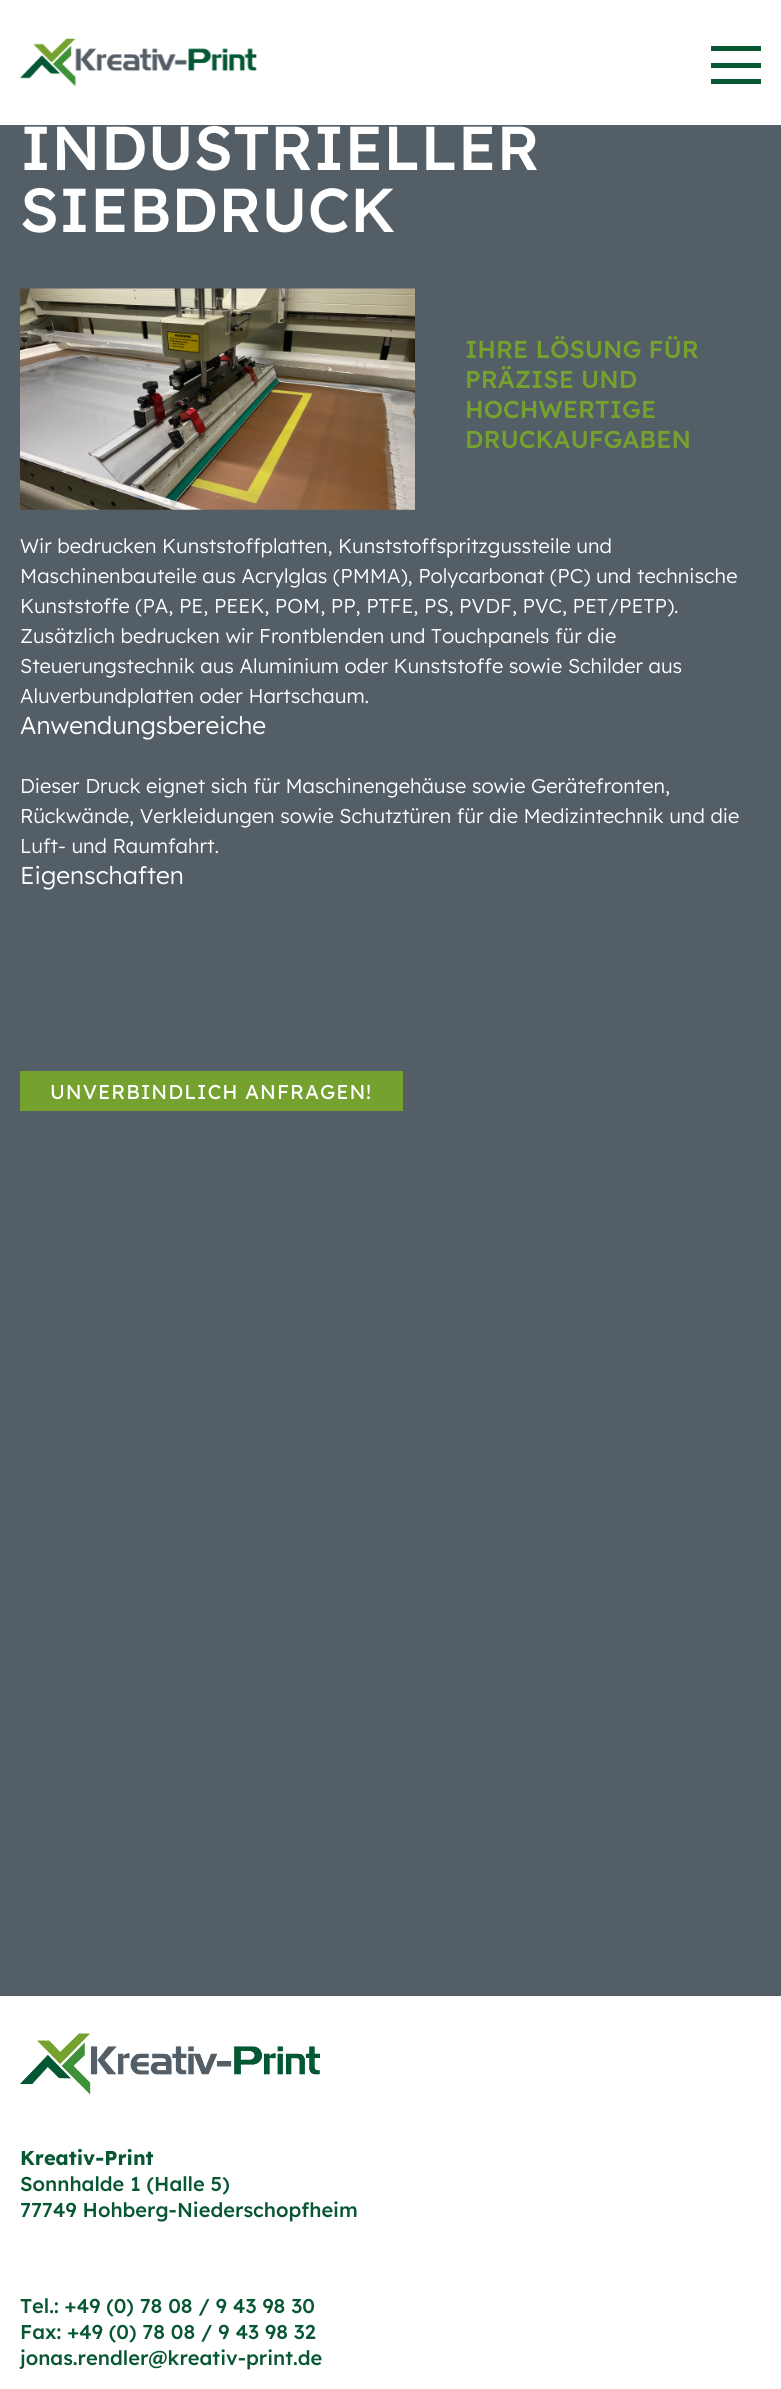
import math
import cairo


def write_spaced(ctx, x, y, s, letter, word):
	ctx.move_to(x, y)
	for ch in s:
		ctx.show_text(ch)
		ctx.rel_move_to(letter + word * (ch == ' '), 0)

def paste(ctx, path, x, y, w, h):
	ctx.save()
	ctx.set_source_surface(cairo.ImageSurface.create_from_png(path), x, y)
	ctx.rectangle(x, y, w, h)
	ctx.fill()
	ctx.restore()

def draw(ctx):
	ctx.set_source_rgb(0.329, 0.369, 0.4)
	ctx.paint()
	ctx.set_source_rgb(1, 1, 1)
	ctx.rectangle(0, 0, 781, 125)
	ctx.fill()
	paste(ctx, 'media/1.png', 20, 38, 237, 49)
	ctx.set_source_rgb(0.031, 0.341, 0.2)
	ctx.rectangle(711, 63, 50, 5)
	ctx.rectangle(711, 46, 50, 5)
	ctx.rectangle(711, 79, 50, 5)
	ctx.fill()
	ctx.select_font_face('Lexend Medium')
	ctx.set_font_size(61.9)
	ctx.set_source_rgb(1, 1, 1)
	ctx.move_to(20, 170)
	ctx.show_text('INDUSTRIELLER')
	ctx.move_to(20, 232)
	ctx.show_text('SIEBDRUCK')
	paste(ctx, 'media/2.png', 20, 288, 395, 222)
	ctx.set_font_size(24.4)
	ctx.set_source_rgb(0.459, 0.631, 0.18)
	for x, y, s in [
		(465, 358, 'IHRE LÖSUNG FÜR'),
		(465, 388, 'PRÄZISE UND'),
		(465, 418, 'HOCHWERTIGE'),
		(465, 448, 'DRUCKAUFGABEN'),
	]:
		ctx.move_to(x, y)
		ctx.show_text(s)
	ctx.select_font_face('Lexend Light')
	ctx.set_font_size(20)
	ctx.set_source_rgb(1, 1, 1)
	for x, y, s in [
		(20, 553, 'Wir bedrucken Kunststoffplatten, Kunststoffspritzgussteile und'),
		(20, 583, 'Maschinenbauteile aus Acrylglas (PMMA), Polycarbonat (PC) und technische'),
		(20, 613, 'Kunststoffe (PA, PE, PEEK, POM, PP, PTFE, PS, PVDF, PVC, PET/PETP).'),
		(20, 643, 'Zusätzlich bedrucken wir Frontblenden und Touchpanels für die'),
		(20, 673, 'Steuerungstechnik aus Aluminium oder Kunststoffe sowie Schilder aus'),
		(20, 703, 'Aluverbundplatten oder Hartschaum.'),
	]:
		ctx.move_to(x, y)
		ctx.show_text(s)
	ctx.set_font_size(24.4)
	ctx.move_to(20, 734)
	ctx.show_text('Anwendungsbereiche')
	ctx.set_font_size(20)
	for x, y, s in [
		(20, 793, 'Dieser Druck eignet sich für Maschinengehäuse sowie Gerätefronten,'),
		(20, 823, 'Rückwände, Verkleidungen sowie Schutztüren für die Medizintechnik und die'),
		(20, 853, 'Luft- und Raumfahrt.'),
	]:
		ctx.move_to(x, y)
		ctx.show_text(s)
	ctx.set_font_size(24.4)
	ctx.move_to(20, 884)
	ctx.show_text('Eigenschaften')
	ctx.set_source_rgb(0.459, 0.631, 0.18)
	ctx.rectangle(20, 1071, 383, 40)
	ctx.fill()
	ctx.select_font_face('Lexend')
	ctx.set_font_size(20)
	ctx.set_source_rgb(1, 1, 1)
	write_spaced(ctx, 50, 1099, 'UNVERBINDLICH ANFRAGEN!', 1, 0)
	ctx.rectangle(0, 1996, 781, 393)
	ctx.fill()
	paste(ctx, 'media/3.png', 20, 2033, 300, 62)
	ctx.select_font_face('Lexend', cairo.FONT_SLANT_NORMAL, cairo.FONT_WEIGHT_BOLD)
	ctx.set_source_rgb(0.031, 0.341, 0.2)
	ctx.move_to(20, 2165)
	ctx.show_text('Kreativ-Print')
	ctx.select_font_face('Lexend Medium')
	for x, y, s in [
		(20, 2191, 'Sonnhalde 1 (Halle 5)'),
		(20, 2217, '77749 Hohberg-Niederschopfheim'),
		(20, 2313, 'Tel.: +49 (0) 78 08 / 9 43 98 30'),
		(20, 2339, 'Fax: +49 (0) 78 08 / 9 43 98 32'),
		(20, 2365, 'jonas.rendler@kreativ-print.de'),
	]:
		ctx.move_to(x, y)
		ctx.show_text(s)


surface = cairo.ImageSurface(cairo.FORMAT_RGB24, 781, 2389)
ctx = cairo.Context(surface)
options = cairo.FontOptions()
options.set_hint_metrics(cairo.HINT_METRICS_OFF)
options.set_hint_style(cairo.HINT_STYLE_NONE)
ctx.set_font_options(options)
ctx.set_miter_limit(4)
draw(ctx)
surface.write_to_png('image.png')
